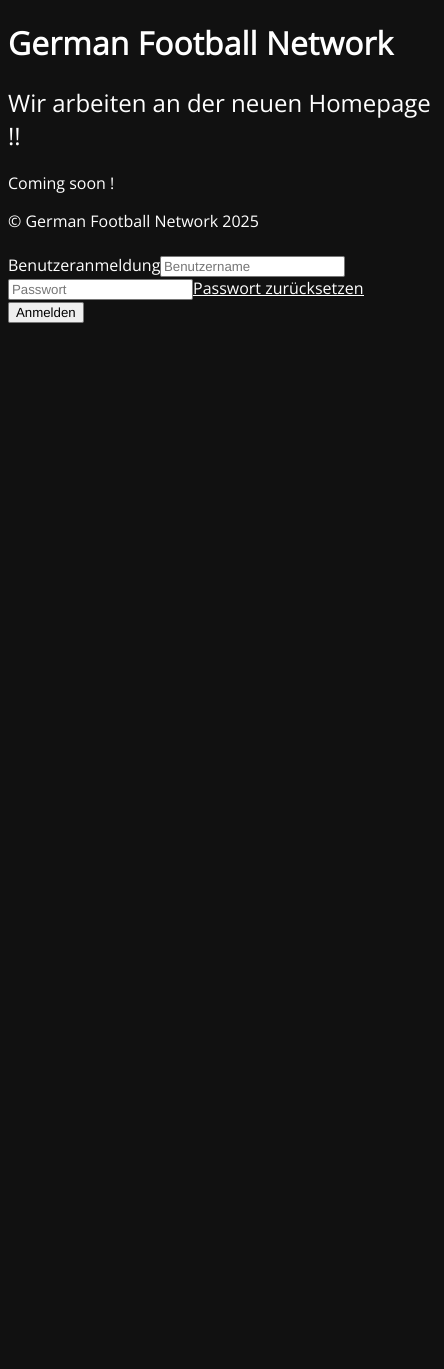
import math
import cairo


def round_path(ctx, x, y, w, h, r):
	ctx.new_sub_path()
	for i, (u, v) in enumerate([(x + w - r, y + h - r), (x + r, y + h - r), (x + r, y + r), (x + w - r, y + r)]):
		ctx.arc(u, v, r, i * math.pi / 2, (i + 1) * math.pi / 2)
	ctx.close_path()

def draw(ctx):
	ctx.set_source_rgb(0.067, 0.067, 0.067)
	ctx.paint()
	ctx.select_font_face('Open Sans', cairo.FONT_SLANT_NORMAL, cairo.FONT_WEIGHT_BOLD)
	ctx.set_font_size(32)
	ctx.set_source_rgb(1, 1, 1)
	ctx.move_to(8, 55)
	ctx.show_text('German Football Network')
	ctx.select_font_face('Open Sans')
	ctx.set_font_size(24)
	ctx.move_to(8, 112)
	ctx.show_text('Wir arbeiten an der neuen Homepage')
	ctx.move_to(8, 145)
	ctx.show_text('!!')
	ctx.set_font_size(16)
	for x, y, s in [
		(8, 189, 'Coming soon !'),
		(8, 227, '© German Football Network 2025'),
		(8, 271, 'Benutzeranmeldung'),
	]:
		ctx.move_to(x, y)
		ctx.show_text(s)
	round_path(ctx, 160.5, 256.5, 184, 20, 1.5)
	ctx.fill_preserve()
	ctx.set_source_rgb(0.463, 0.463, 0.463)
	ctx.set_line_width(1)
	ctx.stroke()
	ctx.select_font_face('Liberation Sans')
	ctx.set_font_size(13.25)
	ctx.set_source_rgb(0.459, 0.459, 0.459)
	ctx.move_to(164, 271)
	ctx.show_text('Benutzername')
	ctx.set_source_rgb(1, 1, 1)
	round_path(ctx, 8.5, 279.5, 184, 20, 1.5)
	ctx.fill_preserve()
	ctx.set_source_rgb(0.463, 0.463, 0.463)
	ctx.stroke()
	ctx.set_source_rgb(0.459, 0.459, 0.459)
	ctx.move_to(12, 294)
	ctx.show_text('Passwort')
	ctx.select_font_face('Open Sans')
	ctx.set_font_size(16)
	ctx.set_source_rgb(1, 1, 1)
	ctx.move_to(193, 294)
	ctx.show_text('Passwort zurücksetzen')
	ctx.rectangle(193, 295, 171, 1)
	ctx.fill()
	ctx.set_source_rgb(0.937, 0.937, 0.937)
	round_path(ctx, 8.5, 302.5, 75, 20, 1.5)
	ctx.fill_preserve()
	ctx.set_source_rgb(0.463, 0.463, 0.463)
	ctx.stroke()
	ctx.select_font_face('Liberation Sans')
	ctx.set_font_size(13.25)
	ctx.set_source_rgb(0, 0, 0)
	ctx.move_to(16, 317)
	ctx.show_text('Anmelden')


surface = cairo.ImageSurface(cairo.FORMAT_RGB24, 444, 1369)
ctx = cairo.Context(surface)
options = cairo.FontOptions()
options.set_hint_metrics(cairo.HINT_METRICS_OFF)
options.set_hint_style(cairo.HINT_STYLE_NONE)
ctx.set_font_options(options)
ctx.set_miter_limit(4)
draw(ctx)
surface.write_to_png('image.png')
